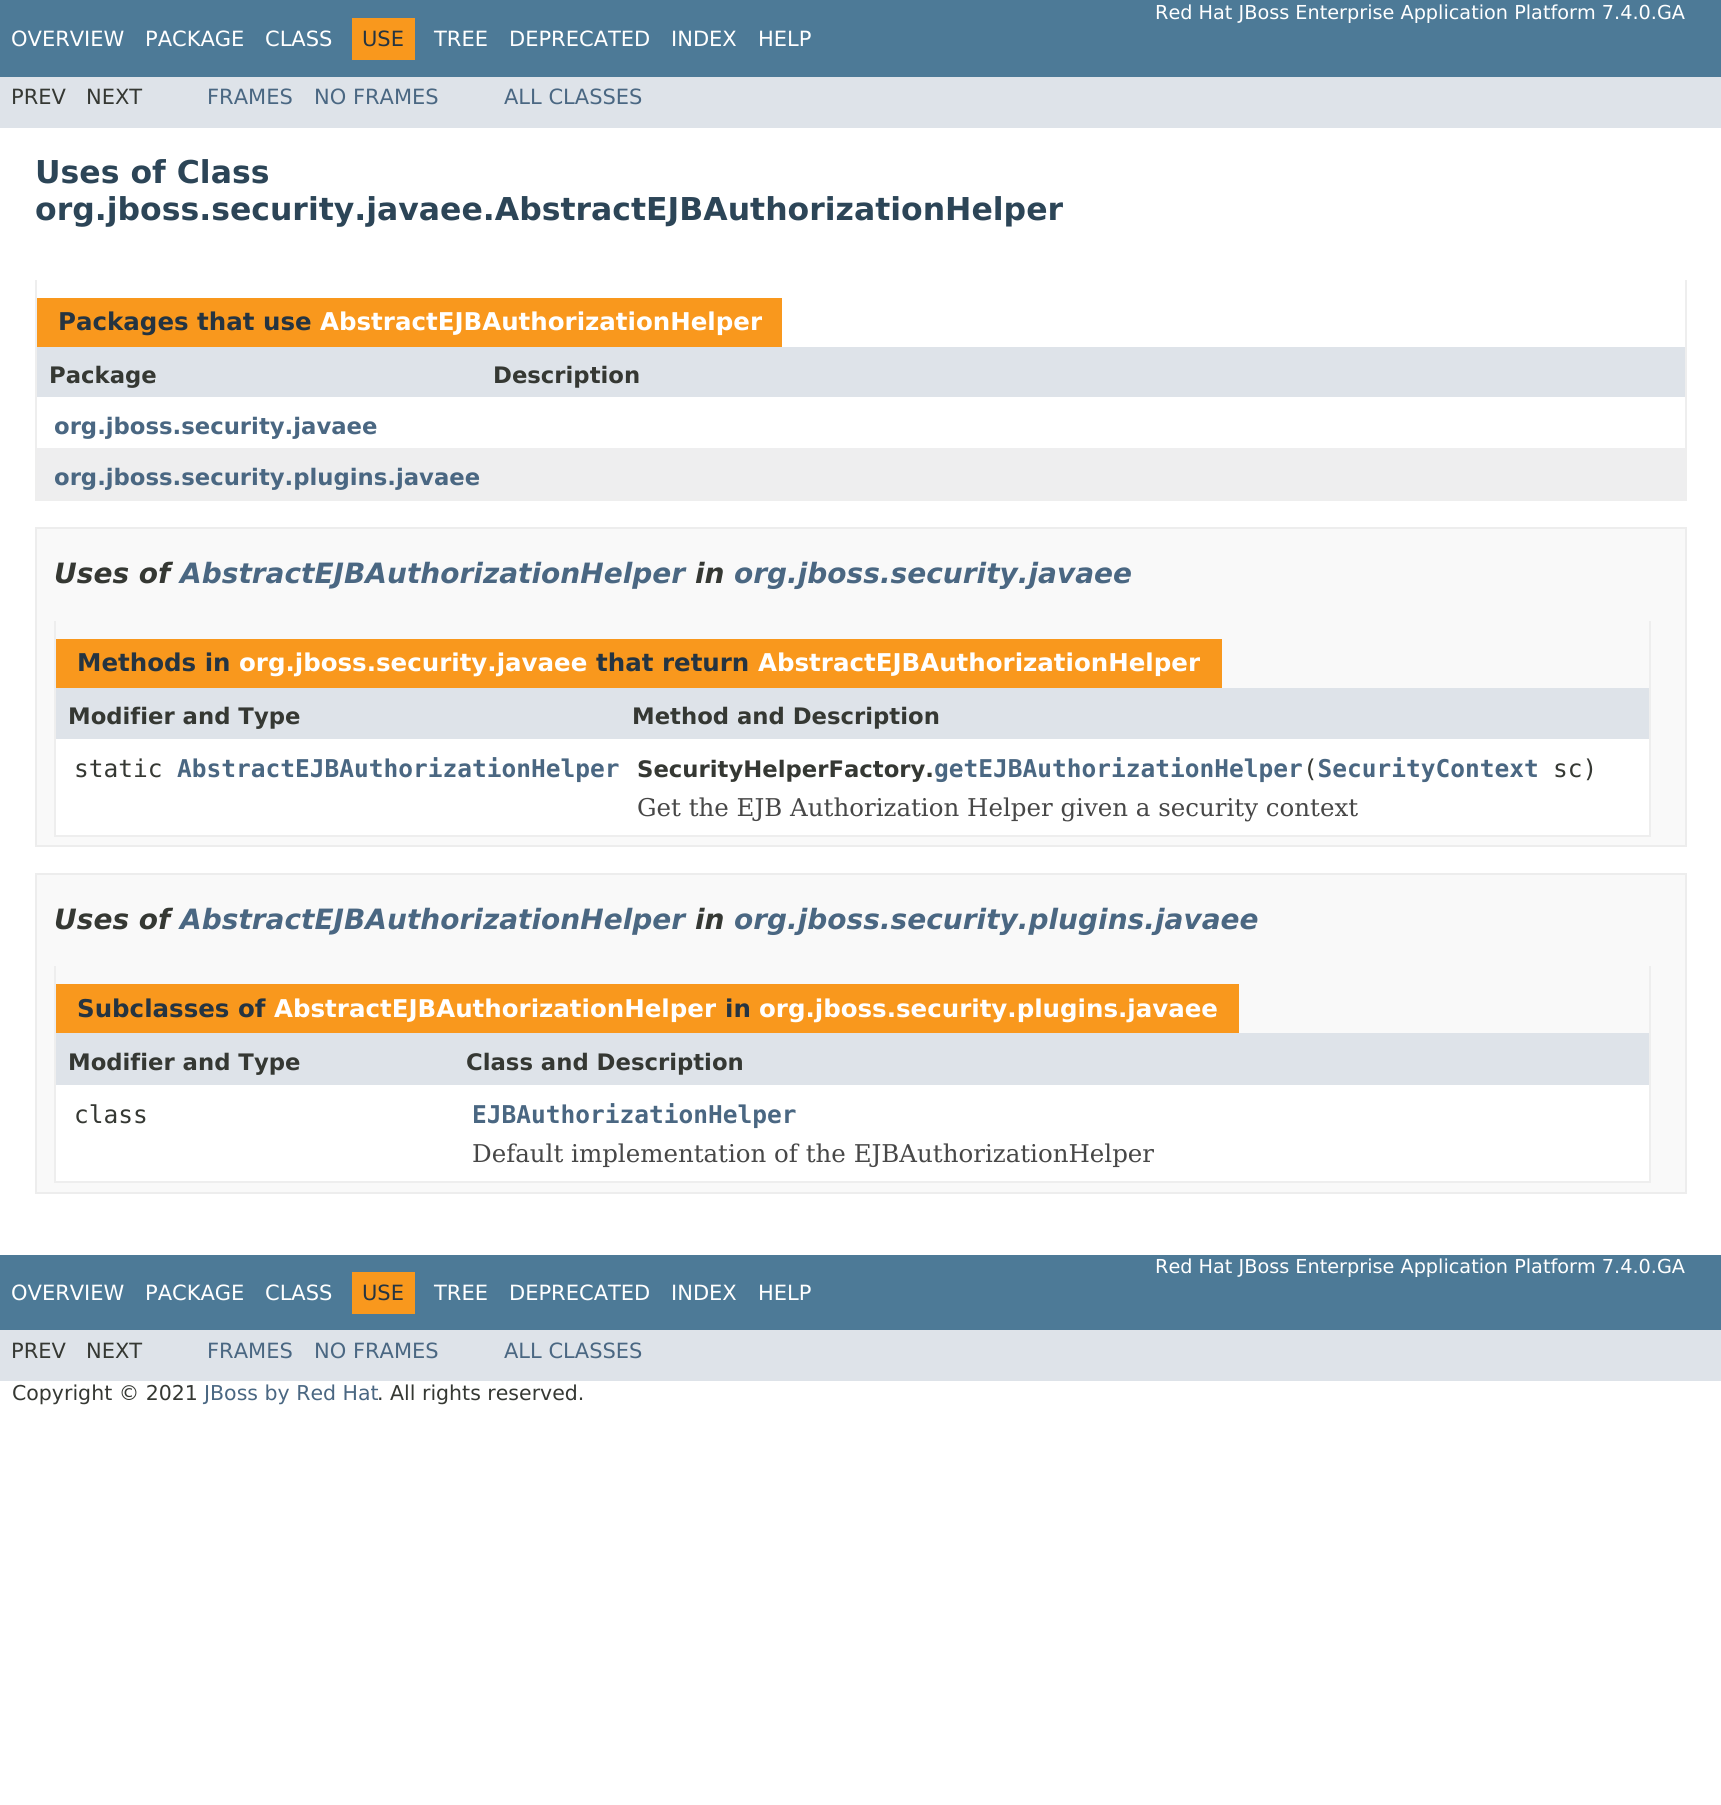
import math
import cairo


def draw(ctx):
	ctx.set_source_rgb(1, 1, 1)
	ctx.paint()
	ctx.set_source_rgb(0.302, 0.478, 0.592)
	ctx.rectangle(0, 0, 1721, 77)
	ctx.fill()
	ctx.select_font_face('DejaVu Sans')
	ctx.set_font_size(19.25)
	ctx.set_source_rgb(1, 1, 1)
	ctx.move_to(1155, 19)
	ctx.show_text('Red Hat JBoss Enterprise Application Platform 7.4.0.GA')
	ctx.set_font_size(21)
	for x, y, s in [
		(11, 46, 'OVERVIEW'),
		(145, 46, 'PACKAGE'),
		(265, 46, 'CLASS'),
	]:
		ctx.move_to(x, y)
		ctx.show_text(s)
	ctx.set_source_rgb(0.973, 0.596, 0.114)
	ctx.rectangle(352, 18, 63, 42)
	ctx.fill()
	ctx.set_source_rgb(0.145, 0.204, 0.255)
	ctx.move_to(362, 46)
	ctx.show_text('USE')
	ctx.set_source_rgb(1, 1, 1)
	for x, y, s in [
		(434, 46, 'TREE'),
		(509, 46, 'DEPRECATED'),
		(671, 46, 'INDEX'),
		(758, 46, 'HELP'),
	]:
		ctx.move_to(x, y)
		ctx.show_text(s)
	ctx.set_source_rgb(0.871, 0.89, 0.914)
	ctx.rectangle(0, 77, 1721, 51)
	ctx.fill()
	ctx.set_source_rgb(0.208, 0.22, 0.2)
	ctx.move_to(11, 104)
	ctx.show_text('PREV')
	ctx.move_to(86, 104)
	ctx.show_text('NEXT')
	ctx.set_source_rgb(0.29, 0.404, 0.51)
	for x, y, s in [
		(207, 104, 'FRAMES'),
		(314, 104, 'NO FRAMES'),
		(504, 104, 'ALL CLASSES'),
	]:
		ctx.move_to(x, y)
		ctx.show_text(s)
	ctx.select_font_face('DejaVu Sans', cairo.FONT_SLANT_NORMAL, cairo.FONT_WEIGHT_BOLD)
	ctx.set_font_size(31.5)
	ctx.set_source_rgb(0.173, 0.271, 0.341)
	ctx.move_to(35, 183)
	ctx.show_text('Uses of Class')
	ctx.move_to(35, 220)
	ctx.show_text('org.jboss.security.javaee.AbstractEJBAuthorizationHelper')
	ctx.set_source_rgb(0.933, 0.933, 0.933)
	ctx.rectangle(1685, 280, 2, 221)
	ctx.rectangle(35, 499, 1652, 2)
	ctx.rectangle(35, 280, 2, 221)
	ctx.fill()
	ctx.set_source_rgb(0.973, 0.596, 0.114)
	ctx.rectangle(37, 298, 745, 49)
	ctx.fill()
	ctx.set_font_size(24.5)
	ctx.set_source_rgb(0.145, 0.204, 0.255)
	ctx.move_to(58, 330)
	ctx.show_text('Packages that use')
	ctx.set_source_rgb(1, 1, 1)
	ctx.move_to(320, 330)
	ctx.show_text('AbstractEJBAuthorizationHelper')
	ctx.set_source_rgb(0.871, 0.89, 0.914)
	ctx.rectangle(37, 347, 1648, 50)
	ctx.fill()
	ctx.set_font_size(22.75)
	ctx.set_source_rgb(0.208, 0.22, 0.2)
	ctx.move_to(49, 383)
	ctx.show_text('Package')
	ctx.move_to(493, 383)
	ctx.show_text('Description')
	ctx.set_source_rgb(0.29, 0.404, 0.51)
	ctx.move_to(54, 434)
	ctx.show_text('org.jboss.security.javaee')
	ctx.set_source_rgb(0.933, 0.933, 0.937)
	ctx.rectangle(37, 448, 1648, 51)
	ctx.fill()
	ctx.set_source_rgb(0.29, 0.404, 0.51)
	ctx.move_to(54, 485)
	ctx.show_text('org.jboss.security.plugins.javaee')
	ctx.set_source_rgb(0.973, 0.973, 0.973)
	ctx.rectangle(36, 528, 1650, 318)
	ctx.fill_preserve()
	ctx.set_source_rgb(0.929, 0.929, 0.929)
	ctx.stroke()
	ctx.select_font_face('DejaVu Sans', cairo.FONT_SLANT_ITALIC, cairo.FONT_WEIGHT_BOLD)
	ctx.set_font_size(28)
	ctx.set_source_rgb(0.208, 0.22, 0.2)
	ctx.move_to(54, 583)
	ctx.show_text('Uses of')
	ctx.set_source_rgb(0.29, 0.404, 0.51)
	ctx.move_to(180, 583)
	ctx.show_text('AbstractEJBAuthorizationHelper')
	ctx.set_source_rgb(0.208, 0.22, 0.2)
	ctx.move_to(695, 583)
	ctx.show_text('in')
	ctx.set_source_rgb(0.29, 0.404, 0.51)
	ctx.move_to(734, 583)
	ctx.show_text('org.jboss.security.javaee')
	ctx.set_source_rgb(0.933, 0.933, 0.933)
	ctx.rectangle(1649, 621, 2, 216)
	ctx.rectangle(54, 835, 1596, 2)
	ctx.rectangle(54, 621, 2, 216)
	ctx.fill()
	ctx.set_source_rgb(0.973, 0.596, 0.114)
	ctx.rectangle(56, 639, 1166, 49)
	ctx.fill()
	ctx.select_font_face('DejaVu Sans', cairo.FONT_SLANT_NORMAL, cairo.FONT_WEIGHT_BOLD)
	ctx.set_font_size(24.5)
	ctx.set_source_rgb(0.145, 0.204, 0.255)
	ctx.move_to(77, 671)
	ctx.show_text('Methods in')
	ctx.set_source_rgb(1, 1, 1)
	ctx.move_to(239, 671)
	ctx.show_text('org.jboss.security.javaee')
	ctx.set_source_rgb(0.145, 0.204, 0.255)
	ctx.move_to(596, 671)
	ctx.show_text('that return')
	ctx.set_source_rgb(1, 1, 1)
	ctx.move_to(758, 671)
	ctx.show_text('AbstractEJBAuthorizationHelper')
	ctx.set_source_rgb(0.871, 0.89, 0.914)
	ctx.rectangle(56, 688, 1593, 51)
	ctx.fill()
	ctx.set_font_size(22.75)
	ctx.set_source_rgb(0.208, 0.22, 0.2)
	ctx.move_to(68, 724)
	ctx.show_text('Modifier and Type')
	ctx.move_to(632, 724)
	ctx.show_text('Method and Description')
	ctx.set_source_rgb(1, 1, 1)
	ctx.rectangle(56, 739, 1593, 96)
	ctx.fill()
	ctx.select_font_face('DejaVu Sans Mono')
	ctx.set_font_size(24.5)
	ctx.set_source_rgb(0.208, 0.22, 0.2)
	ctx.move_to(74, 777)
	ctx.show_text('static')
	ctx.select_font_face('DejaVu Sans Mono', cairo.FONT_SLANT_NORMAL, cairo.FONT_WEIGHT_BOLD)
	ctx.set_source_rgb(0.29, 0.404, 0.51)
	ctx.move_to(177, 777)
	ctx.show_text('AbstractEJBAuthorizationHelper')
	ctx.move_to(934, 777)
	ctx.show_text('getEJBAuthorizationHelper SecurityContext')
	ctx.select_font_face('DejaVu Sans', cairo.FONT_SLANT_NORMAL, cairo.FONT_WEIGHT_BOLD)
	ctx.set_font_size(22.75)
	ctx.set_source_rgb(0.208, 0.22, 0.2)
	ctx.move_to(637, 777)
	ctx.show_text('SecurityHelperFactory.')
	ctx.select_font_face('DejaVu Sans Mono')
	ctx.set_font_size(24.5)
	ctx.move_to(1303, 777)
	ctx.show_text('(')
	ctx.move_to(1553, 777)
	ctx.show_text('sc)')
	ctx.select_font_face('DejaVu Serif')
	ctx.set_source_rgb(0.278, 0.278, 0.278)
	ctx.move_to(637, 816)
	ctx.show_text('Get the EJB Authorization Helper given a security context')
	ctx.set_source_rgb(0.973, 0.973, 0.973)
	ctx.rectangle(36, 874, 1650, 319)
	ctx.fill_preserve()
	ctx.set_source_rgb(0.929, 0.929, 0.929)
	ctx.stroke()
	ctx.select_font_face('DejaVu Sans', cairo.FONT_SLANT_ITALIC, cairo.FONT_WEIGHT_BOLD)
	ctx.set_font_size(28)
	ctx.set_source_rgb(0.208, 0.22, 0.2)
	ctx.move_to(54, 929)
	ctx.show_text('Uses of')
	ctx.set_source_rgb(0.29, 0.404, 0.51)
	ctx.move_to(180, 929)
	ctx.show_text('AbstractEJBAuthorizationHelper')
	ctx.set_source_rgb(0.208, 0.22, 0.2)
	ctx.move_to(695, 929)
	ctx.show_text('in')
	ctx.set_source_rgb(0.29, 0.404, 0.51)
	ctx.move_to(734, 929)
	ctx.show_text('org.jboss.security.plugins.javaee')
	ctx.set_source_rgb(0.933, 0.933, 0.933)
	ctx.rectangle(1649, 966, 2, 217)
	ctx.rectangle(54, 1181, 1596, 2)
	ctx.rectangle(54, 966, 2, 217)
	ctx.fill()
	ctx.set_source_rgb(0.973, 0.596, 0.114)
	ctx.rectangle(56, 984, 1183, 49)
	ctx.fill()
	ctx.select_font_face('DejaVu Sans', cairo.FONT_SLANT_NORMAL, cairo.FONT_WEIGHT_BOLD)
	ctx.set_font_size(24.5)
	ctx.set_source_rgb(0.145, 0.204, 0.255)
	ctx.move_to(77, 1017)
	ctx.show_text('Subclasses of')
	ctx.set_source_rgb(1, 1, 1)
	ctx.move_to(274, 1017)
	ctx.show_text('AbstractEJBAuthorizationHelper')
	ctx.set_source_rgb(0.145, 0.204, 0.255)
	ctx.move_to(725, 1017)
	ctx.show_text('in')
	ctx.set_source_rgb(1, 1, 1)
	ctx.move_to(759, 1017)
	ctx.show_text('org.jboss.security.plugins.javaee')
	ctx.set_source_rgb(0.871, 0.89, 0.914)
	ctx.rectangle(56, 1033, 1593, 52)
	ctx.fill()
	ctx.set_font_size(22.75)
	ctx.set_source_rgb(0.208, 0.22, 0.2)
	ctx.move_to(68, 1070)
	ctx.show_text('Modifier and Type')
	ctx.move_to(466, 1070)
	ctx.show_text('Class and Description')
	ctx.set_source_rgb(1, 1, 1)
	ctx.rectangle(56, 1085, 1593, 96)
	ctx.fill()
	ctx.select_font_face('DejaVu Sans Mono')
	ctx.set_font_size(24.5)
	ctx.set_source_rgb(0.208, 0.22, 0.2)
	ctx.move_to(74, 1123)
	ctx.show_text('class')
	ctx.select_font_face('DejaVu Sans Mono', cairo.FONT_SLANT_NORMAL, cairo.FONT_WEIGHT_BOLD)
	ctx.set_source_rgb(0.29, 0.404, 0.51)
	ctx.move_to(472, 1123)
	ctx.show_text('EJBAuthorizationHelper')
	ctx.select_font_face('DejaVu Serif')
	ctx.set_source_rgb(0.278, 0.278, 0.278)
	ctx.move_to(472, 1162)
	ctx.show_text('Default implementation of the EJBAuthorizationHelper')
	ctx.set_source_rgb(0.302, 0.478, 0.592)
	ctx.rectangle(0, 1255, 1721, 75)
	ctx.fill()
	ctx.select_font_face('DejaVu Sans')
	ctx.set_font_size(19.25)
	ctx.set_source_rgb(1, 1, 1)
	ctx.move_to(1155, 1273)
	ctx.show_text('Red Hat JBoss Enterprise Application Platform 7.4.0.GA')
	ctx.set_font_size(21)
	for x, y, s in [
		(11, 1300, 'OVERVIEW'),
		(145, 1300, 'PACKAGE'),
		(265, 1300, 'CLASS'),
	]:
		ctx.move_to(x, y)
		ctx.show_text(s)
	ctx.set_source_rgb(0.973, 0.596, 0.114)
	ctx.rectangle(352, 1272, 63, 42)
	ctx.fill()
	ctx.set_source_rgb(0.145, 0.204, 0.255)
	ctx.move_to(362, 1300)
	ctx.show_text('USE')
	ctx.set_source_rgb(1, 1, 1)
	for x, y, s in [
		(434, 1300, 'TREE'),
		(509, 1300, 'DEPRECATED'),
		(671, 1300, 'INDEX'),
		(758, 1300, 'HELP'),
	]:
		ctx.move_to(x, y)
		ctx.show_text(s)
	ctx.set_source_rgb(0.871, 0.89, 0.914)
	ctx.rectangle(0, 1330, 1721, 51)
	ctx.fill()
	ctx.set_source_rgb(0.208, 0.22, 0.2)
	ctx.move_to(11, 1358)
	ctx.show_text('PREV')
	ctx.move_to(86, 1358)
	ctx.show_text('NEXT')
	ctx.set_source_rgb(0.29, 0.404, 0.51)
	for x, y, s in [
		(207, 1358, 'FRAMES'),
		(314, 1358, 'NO FRAMES'),
		(504, 1358, 'ALL CLASSES'),
	]:
		ctx.move_to(x, y)
		ctx.show_text(s)
	ctx.set_font_size(20.5)
	ctx.set_source_rgb(0.208, 0.22, 0.2)
	ctx.move_to(12, 1400)
	ctx.show_text('Copyright © 2021')
	ctx.set_source_rgb(0.29, 0.404, 0.51)
	ctx.move_to(204, 1400)
	ctx.show_text('JBoss by Red Hat')
	ctx.set_source_rgb(0.208, 0.22, 0.2)
	ctx.move_to(377, 1400)
	ctx.show_text('. All rights reserved.')


surface = cairo.ImageSurface(cairo.FORMAT_RGB24, 1721, 1805)
ctx = cairo.Context(surface)
options = cairo.FontOptions()
options.set_hint_metrics(cairo.HINT_METRICS_OFF)
options.set_hint_style(cairo.HINT_STYLE_NONE)
ctx.set_font_options(options)
ctx.set_miter_limit(4)
draw(ctx)
surface.write_to_png('image.png')
